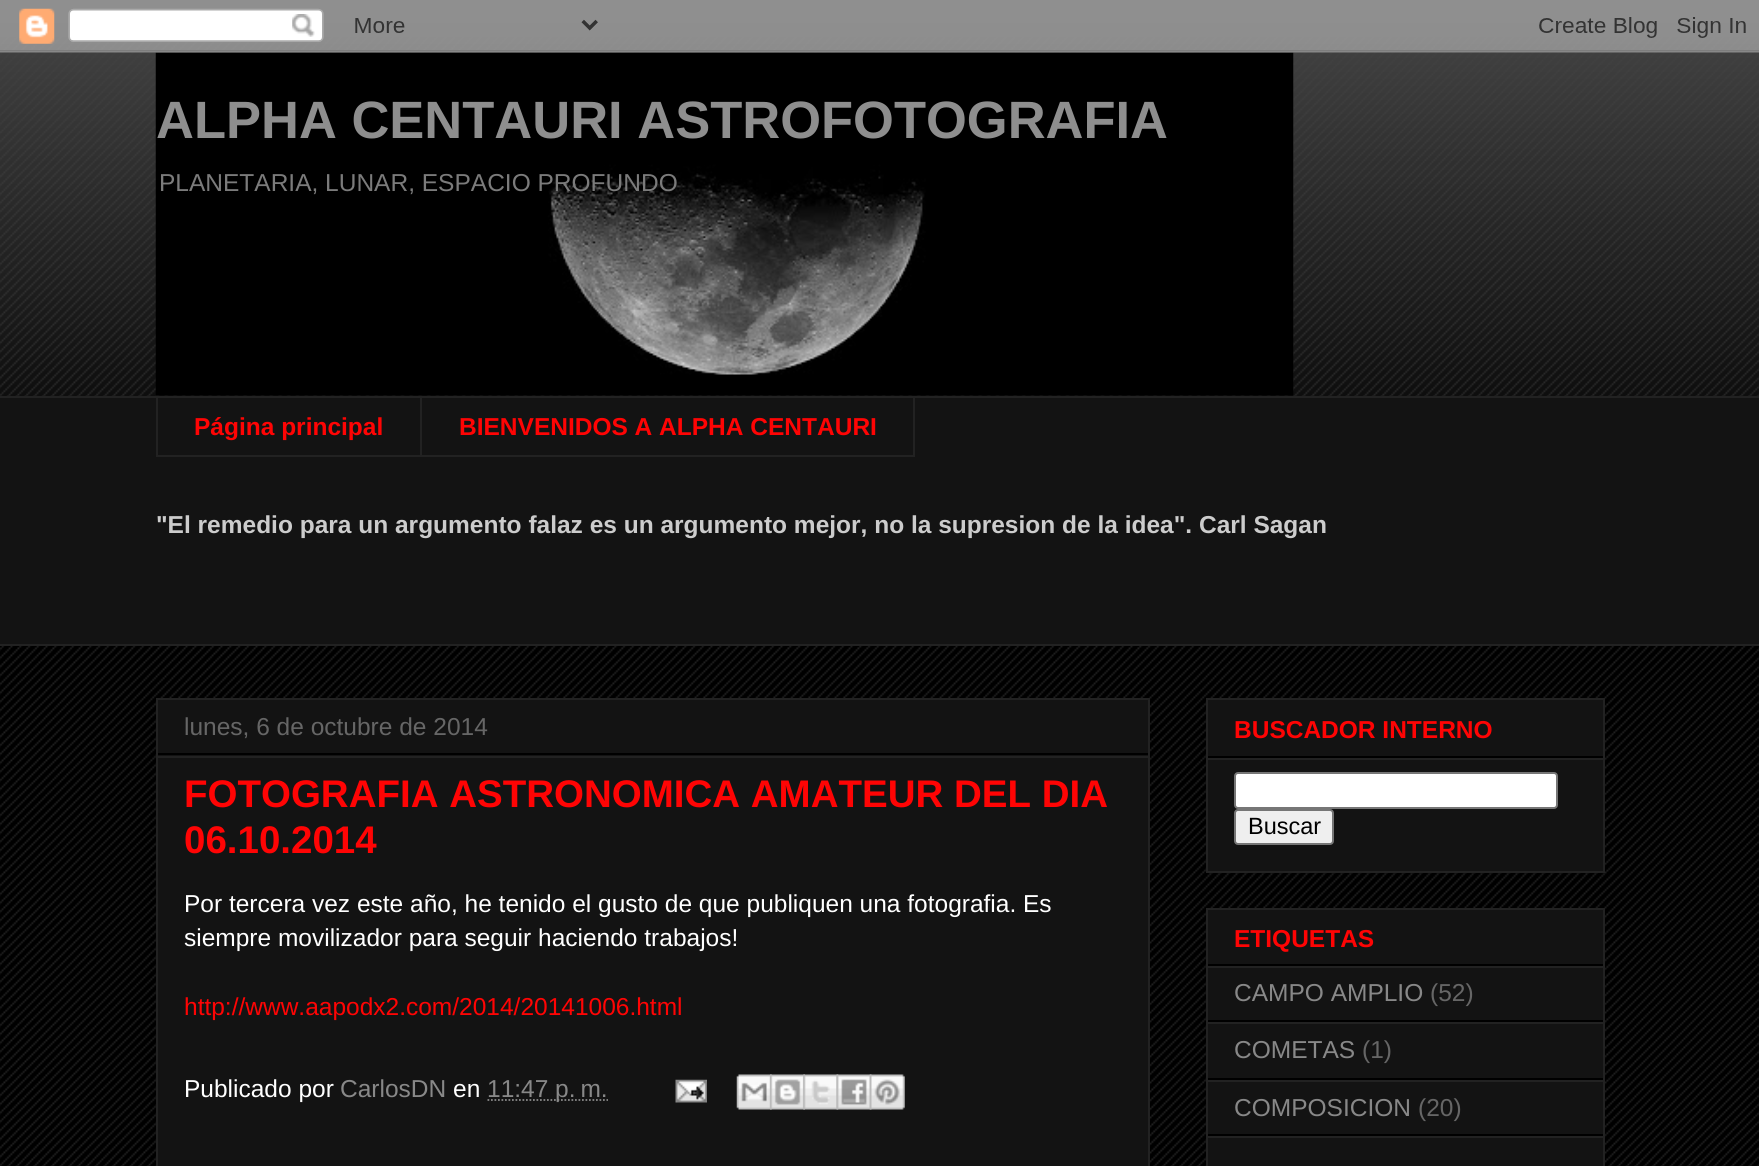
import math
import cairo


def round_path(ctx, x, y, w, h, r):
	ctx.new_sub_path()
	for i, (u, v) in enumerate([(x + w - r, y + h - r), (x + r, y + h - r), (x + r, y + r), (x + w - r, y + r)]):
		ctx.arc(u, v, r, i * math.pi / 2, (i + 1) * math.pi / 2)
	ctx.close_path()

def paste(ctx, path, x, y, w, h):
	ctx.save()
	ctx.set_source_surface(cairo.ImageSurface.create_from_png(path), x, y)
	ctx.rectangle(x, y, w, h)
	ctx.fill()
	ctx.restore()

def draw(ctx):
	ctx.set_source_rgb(0, 0, 0)
	ctx.paint()
	paste(ctx, 'media/1.png', 0, 23, 1759, 1143)
	paste(ctx, 'media/2.png', 0, 0, 1759, 396)
	paste(ctx, 'media/4.png', 155, 52, 1139, 344)
	paste(ctx, 'media/3.png', 0, 0, 1759, 53)
	ctx.select_font_face('Liberation Sans', cairo.FONT_SLANT_NORMAL, cairo.FONT_WEIGHT_BOLD)
	ctx.set_font_size(52.5)
	ctx.set_source_rgb(0.557, 0.557, 0.557)
	ctx.move_to(156, 138)
	ctx.show_text('ALPHA CENTAURI ASTROFOTOGRAFIA')
	ctx.select_font_face('Liberation Sans')
	ctx.set_font_size(24.5)
	ctx.set_source_rgb(0.482, 0.482, 0.482)
	ctx.move_to(159, 191)
	ctx.show_text('PLANETARIA, LUNAR, ESPACIO PROFUNDO')
	ctx.set_source_rgb(0.078, 0.078, 0.078)
	ctx.rectangle(0, 398, 1759, 246)
	ctx.fill()
	ctx.set_source_rgb(0.133, 0.133, 0.133)
	ctx.rectangle(0, 396, 1759, 2)
	ctx.rectangle(156, 455, 264, 2)
	ctx.rectangle(156, 396, 2, 61)
	ctx.fill()
	ctx.select_font_face('Liberation Sans', cairo.FONT_SLANT_NORMAL, cairo.FONT_WEIGHT_BOLD)
	ctx.set_source_rgb(1, 0.016, 0.016)
	ctx.move_to(194, 435)
	ctx.show_text('Página principal')
	ctx.rectangle(421, 397, 493, 59)
	ctx.set_source_rgb(0.133, 0.133, 0.133)
	ctx.stroke()
	ctx.set_source_rgb(1, 0.016, 0.016)
	ctx.move_to(459, 435)
	ctx.show_text('BIENVENIDOS A ALPHA CENTAURI')
	ctx.set_source_rgb(0.8, 0.8, 0.8)
	ctx.move_to(156, 533)
	ctx.show_text('"El remedio para un argumento falaz es un argumento mejor, no la supresion de la idea". Carl Sagan')
	ctx.set_source_rgb(0.133, 0.133, 0.133)
	ctx.rectangle(0, 644, 1759, 2)
	ctx.fill()
	ctx.set_source_rgb(0.078, 0.078, 0.078)
	ctx.rectangle(157, 699, 992, 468)
	ctx.fill_preserve()
	ctx.set_source_rgb(0.133, 0.133, 0.133)
	ctx.stroke()
	ctx.set_source_rgb(0, 0, 0)
	ctx.rectangle(158, 753, 990, 2)
	ctx.fill()
	ctx.select_font_face('Liberation Sans')
	ctx.set_source_rgb(0.4, 0.4, 0.4)
	ctx.move_to(184, 735)
	ctx.show_text('lunes, 6 de octubre de 2014')
	ctx.set_source_rgb(0.133, 0.133, 0.133)
	ctx.rectangle(158, 756, 990, 2)
	ctx.fill()
	ctx.select_font_face('Liberation Sans', cairo.FONT_SLANT_NORMAL, cairo.FONT_WEIGHT_BOLD)
	ctx.set_font_size(38.5)
	ctx.set_source_rgb(1, 0.016, 0.016)
	ctx.move_to(184, 807)
	ctx.show_text('FOTOGRAFIA ASTRONOMICA AMATEUR DEL DIA')
	ctx.move_to(184, 853)
	ctx.show_text('06.10.2014')
	ctx.select_font_face('Liberation Sans')
	ctx.set_font_size(24.5)
	ctx.set_source_rgb(1, 1, 1)
	ctx.move_to(184, 912)
	ctx.show_text('Por tercera vez este año, he tenido el gusto de que publiquen una fotografia. Es')
	ctx.move_to(184, 946)
	ctx.show_text('siempre movilizador para seguir haciendo trabajos!')
	ctx.set_source_rgb(1, 0.016, 0.016)
	ctx.move_to(184, 1015)
	ctx.show_text('http://www.aapodx2.com/2014/20141006.html')
	ctx.set_source_rgb(1, 1, 1)
	ctx.move_to(184, 1097)
	ctx.show_text('Publicado por')
	ctx.set_source_rgb(0.533, 0.533, 0.533)
	ctx.move_to(340, 1097)
	ctx.show_text('CarlosDN')
	ctx.set_source_rgb(1, 1, 1)
	ctx.move_to(453, 1097)
	ctx.show_text('en')
	ctx.new_path()
	ctx.move_to(487.5, 1100)
	ctx.line_to(608, 1100)
	ctx.set_source_rgb(0.533, 0.533, 0.533)
	ctx.set_line_width(1.8)
	ctx.set_dash([1.75, 1.75])
	ctx.stroke()
	ctx.move_to(487, 1097)
	ctx.show_text('11:47 p. m.')
	paste(ctx, 'media/5.png', 675, 1079, 32, 24)
	paste(ctx, 'media/6.png', 736, 1074, 36, 36)
	paste(ctx, 'media/7.png', 770, 1074, 35, 36)
	paste(ctx, 'media/8.png', 803, 1074, 36, 36)
	paste(ctx, 'media/9.png', 836, 1074, 36, 36)
	paste(ctx, 'media/10.png', 869, 1074, 36, 36)
	ctx.set_source_rgb(0.078, 0.078, 0.078)
	ctx.rectangle(1207, 699, 397, 173)
	ctx.fill_preserve()
	ctx.set_source_rgb(0.133, 0.133, 0.133)
	ctx.set_line_width(2)
	ctx.set_dash([])
	ctx.stroke()
	ctx.set_source_rgb(0, 0, 0)
	ctx.rectangle(1208, 756, 395, 2)
	ctx.fill()
	ctx.select_font_face('Liberation Sans', cairo.FONT_SLANT_NORMAL, cairo.FONT_WEIGHT_BOLD)
	ctx.set_source_rgb(1, 0.016, 0.016)
	ctx.move_to(1234, 738)
	ctx.show_text('BUSCADOR INTERNO')
	ctx.set_source_rgb(0.133, 0.133, 0.133)
	ctx.rectangle(1208, 758, 395, 2)
	ctx.fill()
	ctx.set_source_rgb(1, 1, 1)
	round_path(ctx, 1235, 773, 322, 35, 3)
	ctx.fill_preserve()
	ctx.set_source_rgb(0.463, 0.463, 0.463)
	ctx.stroke()
	ctx.set_source_rgb(0.937, 0.937, 0.937)
	round_path(ctx, 1235, 810, 98, 34, 3)
	ctx.fill_preserve()
	ctx.set_source_rgb(0.463, 0.463, 0.463)
	ctx.stroke()
	ctx.select_font_face('Liberation Sans')
	ctx.set_font_size(23.5)
	ctx.set_source_rgb(0, 0, 0)
	ctx.move_to(1248, 834)
	ctx.show_text('Buscar')
	ctx.set_source_rgb(0.078, 0.078, 0.078)
	ctx.rectangle(1207, 909, 397, 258)
	ctx.fill_preserve()
	ctx.set_source_rgb(0.133, 0.133, 0.133)
	ctx.stroke()
	ctx.set_source_rgb(0, 0, 0)
	ctx.rectangle(1208, 964, 395, 2)
	ctx.fill()
	ctx.select_font_face('Liberation Sans', cairo.FONT_SLANT_NORMAL, cairo.FONT_WEIGHT_BOLD)
	ctx.set_font_size(24.5)
	ctx.set_source_rgb(1, 0.016, 0.016)
	ctx.move_to(1234, 947)
	ctx.show_text('ETIQUETAS')
	ctx.set_source_rgb(0.133, 0.133, 0.133)
	ctx.rectangle(1208, 966, 395, 2)
	ctx.fill()
	ctx.set_source_rgb(0, 0, 0)
	ctx.rectangle(1208, 1020, 395, 2)
	ctx.fill()
	ctx.select_font_face('Liberation Sans')
	ctx.set_source_rgb(0.533, 0.533, 0.533)
	ctx.move_to(1234, 1001)
	ctx.show_text('CAMPO AMPLIO')
	ctx.set_source_rgb(0.4, 0.4, 0.4)
	ctx.move_to(1430, 1001)
	ctx.show_text('(52)')
	ctx.set_source_rgb(0.133, 0.133, 0.133)
	ctx.rectangle(1208, 1022, 395, 2)
	ctx.fill()
	ctx.set_source_rgb(0, 0, 0)
	ctx.rectangle(1208, 1078, 395, 2)
	ctx.fill()
	ctx.set_source_rgb(0.533, 0.533, 0.533)
	ctx.move_to(1234, 1058)
	ctx.show_text('COMETAS')
	ctx.set_source_rgb(0.4, 0.4, 0.4)
	ctx.move_to(1362, 1058)
	ctx.show_text('(1)')
	ctx.set_source_rgb(0.133, 0.133, 0.133)
	ctx.rectangle(1208, 1080, 395, 2)
	ctx.fill()
	ctx.set_source_rgb(0, 0, 0)
	ctx.rectangle(1208, 1134, 395, 2)
	ctx.fill()
	ctx.set_source_rgb(0.533, 0.533, 0.533)
	ctx.move_to(1234, 1116)
	ctx.show_text('COMPOSICION')
	ctx.set_source_rgb(0.4, 0.4, 0.4)
	ctx.move_to(1418, 1116)
	ctx.show_text('(20)')
	ctx.set_source_rgb(0.133, 0.133, 0.133)
	ctx.rectangle(1208, 1136, 395, 2)
	ctx.fill()


surface = cairo.ImageSurface(cairo.FORMAT_RGB24, 1759, 1166)
ctx = cairo.Context(surface)
options = cairo.FontOptions()
options.set_hint_metrics(cairo.HINT_METRICS_OFF)
options.set_hint_style(cairo.HINT_STYLE_NONE)
ctx.set_font_options(options)
ctx.set_miter_limit(4)
draw(ctx)
surface.write_to_png('image.png')
